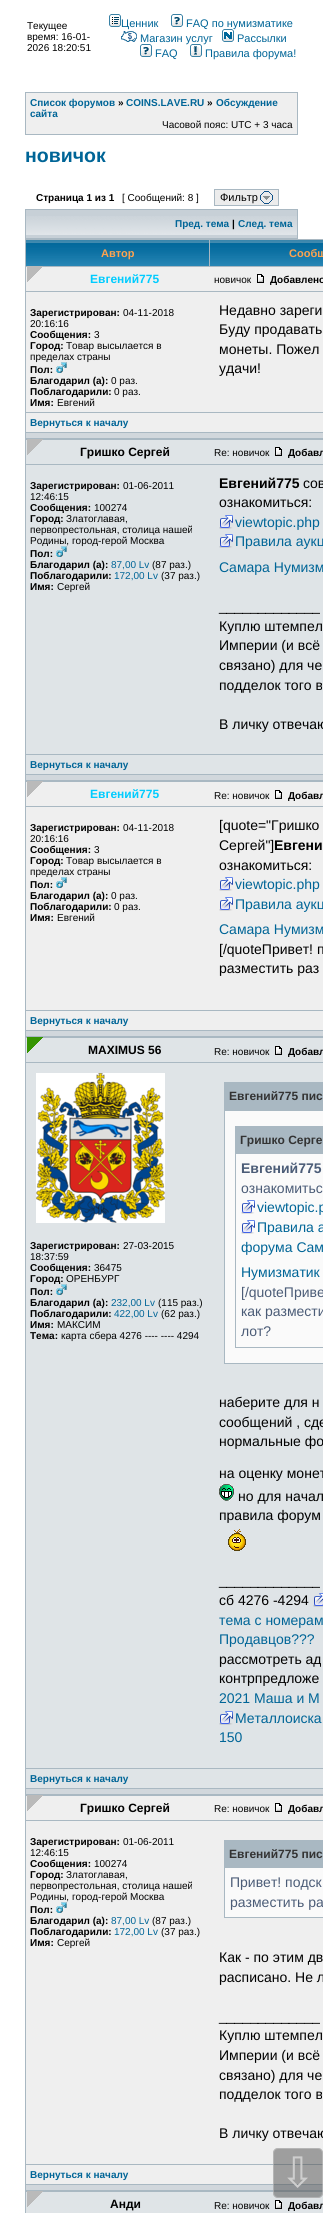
import math
import cairo


def round_path(ctx, x, y, w, h, r):
	ctx.new_sub_path()
	for i, (u, v) in enumerate([(x + w - r, y + h - r), (x + r, y + h - r), (x + r, y + r), (x + w - r, y + r)]):
		ctx.arc(u, v, r, i * math.pi / 2, (i + 1) * math.pi / 2)
	ctx.close_path()

def paste(ctx, path, x, y, w, h):
	ctx.save()
	ctx.set_source_surface(cairo.ImageSurface.create_from_png(path), x, y)
	ctx.rectangle(x, y, w, h)
	ctx.fill()
	ctx.restore()

def draw(ctx):
	ctx.set_source_rgb(1, 1, 1)
	ctx.paint()
	ctx.select_font_face('Liberation Sans')
	ctx.set_font_size(10)
	ctx.set_source_rgb(0, 0, 0)
	for x, y, s in [
		(27, 29, 'Текущее'),
		(27, 40, 'время: 16-01-'),
		(27, 51, '2026 18:20:51'),
	]:
		ctx.move_to(x, y)
		ctx.show_text(s)
	paste(ctx, 'media/1.png', 109, 14, 12, 13)
	ctx.set_font_size(11)
	ctx.set_source_rgb(0, 0.396, 0.592)
	ctx.move_to(121, 27)
	ctx.show_text('Ценник')
	paste(ctx, 'media/2.png', 171, 14, 12, 13)
	ctx.move_to(186, 27)
	ctx.show_text('FAQ по нумизматике')
	paste(ctx, 'media/3.png', 121, 31, 16, 11)
	ctx.move_to(140, 42)
	ctx.show_text('Магазин услуг')
	paste(ctx, 'media/4.png', 222, 29, 12, 13)
	ctx.move_to(237, 42)
	ctx.show_text('Рассылки')
	paste(ctx, 'media/2.png', 140, 44, 12, 13)
	ctx.move_to(155, 57)
	ctx.show_text('FAQ')
	paste(ctx, 'media/5.png', 190, 44, 12, 13)
	ctx.move_to(205, 57)
	ctx.show_text('Правила форума!')
	ctx.set_source_rgb(0.663, 0.722, 0.761)
	ctx.rectangle(25, 92, 273, 43)
	ctx.fill()
	ctx.set_source_rgb(0.937, 0.937, 0.937)
	ctx.rectangle(26, 93, 271, 41)
	ctx.fill()
	ctx.select_font_face('Liberation Sans', cairo.FONT_SLANT_NORMAL, cairo.FONT_WEIGHT_BOLD)
	ctx.set_font_size(10)
	ctx.set_source_rgb(0, 0.396, 0.592)
	ctx.move_to(30, 106)
	ctx.show_text('Список форумов')
	ctx.set_source_rgb(0, 0, 0)
	ctx.move_to(118, 106)
	ctx.show_text('»')
	ctx.set_source_rgb(0, 0.396, 0.592)
	ctx.move_to(126, 106)
	ctx.show_text('COINS.LAVE.RU')
	ctx.set_source_rgb(0, 0, 0)
	ctx.move_to(207, 106)
	ctx.show_text('»')
	ctx.set_source_rgb(0, 0.396, 0.592)
	ctx.move_to(216, 106)
	ctx.show_text('Обсуждение')
	ctx.move_to(30, 117)
	ctx.show_text('сайта')
	ctx.select_font_face('Liberation Sans')
	ctx.set_source_rgb(0, 0, 0)
	ctx.move_to(162, 128)
	ctx.show_text('Часовой пояс: UTC + 3 часа')
	ctx.select_font_face('Liberation Sans', cairo.FONT_SLANT_NORMAL, cairo.FONT_WEIGHT_BOLD)
	ctx.set_font_size(19.5)
	ctx.set_source_rgb(0, 0.396, 0.592)
	ctx.move_to(25, 162)
	ctx.show_text('новичок')
	ctx.set_font_size(10)
	ctx.set_source_rgb(0, 0, 0)
	ctx.move_to(36, 201)
	ctx.show_text('Страница 1 из 1')
	ctx.select_font_face('Liberation Sans')
	ctx.move_to(122, 201)
	ctx.show_text('[ Сообщений: 8 ]')
	ctx.set_source_rgb(0.925, 0.925, 0.925)
	ctx.rectangle(214.5, 189.5, 64, 16)
	ctx.fill_preserve()
	ctx.set_source_rgb(0.663, 0.722, 0.761)
	ctx.set_line_width(1)
	ctx.stroke()
	ctx.set_font_size(11)
	ctx.set_source_rgb(0, 0, 0)
	ctx.move_to(220, 201)
	ctx.show_text('Фильтр')
	paste(ctx, 'media/6.png', 260, 191, 13, 13)
	ctx.set_source_rgb(0.663, 0.722, 0.761)
	ctx.rectangle(25, 209, 273, 30)
	ctx.fill()
	ctx.set_source_rgb(0.78, 0.816, 0.843)
	ctx.rectangle(26, 210, 271, 28)
	ctx.fill()
	paste(ctx, 'media/7.png', 26, 216, 271, 19)
	ctx.select_font_face('Liberation Sans', cairo.FONT_SLANT_NORMAL, cairo.FONT_WEIGHT_BOLD)
	ctx.set_font_size(10)
	ctx.set_source_rgb(0, 0.396, 0.592)
	ctx.move_to(175, 227)
	ctx.show_text('Пред. тема')
	ctx.set_source_rgb(0, 0, 0)
	ctx.move_to(232, 227)
	ctx.show_text('|')
	ctx.set_source_rgb(0, 0.396, 0.592)
	ctx.move_to(238, 227)
	ctx.show_text('След. тема')
	ctx.set_source_rgb(0.663, 0.722, 0.761)
	ctx.rectangle(25, 239, 298, 1974)
	ctx.fill()
	paste(ctx, 'media/8.png', 26, 240, 183, 26)
	ctx.set_font_size(11)
	ctx.set_source_rgb(1, 0.639, 0.31)
	ctx.move_to(101, 257)
	ctx.show_text('Автор')
	paste(ctx, 'media/9.png', 210, 240, 113, 26)
	ctx.move_to(289, 257)
	ctx.show_text('Сообщ')
	ctx.set_source_rgb(0.937, 0.937, 0.937)
	ctx.rectangle(26, 267, 297, 24)
	ctx.fill()
	paste(ctx, 'media/10.png', 27, 266, 16, 16)
	ctx.set_font_size(12)
	ctx.set_source_rgb(0, 0.8, 1)
	ctx.move_to(90, 283)
	ctx.show_text('Евгений775')
	ctx.select_font_face('Liberation Sans')
	ctx.set_font_size(10)
	ctx.set_source_rgb(0, 0, 0)
	ctx.move_to(214, 283)
	ctx.show_text('новичок')
	paste(ctx, 'media/11.png', 257, 274, 7, 9)
	ctx.select_font_face('Liberation Sans', cairo.FONT_SLANT_NORMAL, cairo.FONT_WEIGHT_BOLD)
	ctx.move_to(270, 283)
	ctx.show_text('Добавлено')
	ctx.set_source_rgb(0.937, 0.937, 0.937)
	ctx.rectangle(26, 292, 297, 120)
	ctx.fill()
	ctx.set_source_rgb(0, 0, 0)
	ctx.move_to(30, 316)
	ctx.show_text('Зарегистрирован:')
	ctx.select_font_face('Liberation Sans')
	ctx.move_to(123, 316)
	ctx.show_text('04-11-2018')
	ctx.move_to(30, 327)
	ctx.show_text('20:16:16')
	ctx.select_font_face('Liberation Sans', cairo.FONT_SLANT_NORMAL, cairo.FONT_WEIGHT_BOLD)
	ctx.move_to(30, 338)
	ctx.show_text('Сообщения:')
	ctx.select_font_face('Liberation Sans')
	ctx.move_to(94, 338)
	ctx.show_text('3')
	ctx.select_font_face('Liberation Sans', cairo.FONT_SLANT_NORMAL, cairo.FONT_WEIGHT_BOLD)
	ctx.move_to(30, 349)
	ctx.show_text('Город:')
	ctx.select_font_face('Liberation Sans')
	ctx.move_to(66, 349)
	ctx.show_text('Товар высылается в')
	ctx.move_to(30, 360)
	ctx.show_text('пределах страны')
	ctx.select_font_face('Liberation Sans', cairo.FONT_SLANT_NORMAL, cairo.FONT_WEIGHT_BOLD)
	ctx.move_to(30, 373)
	ctx.show_text('Пол:')
	paste(ctx, 'media/12.png', 56, 362, 11, 11)
	ctx.move_to(30, 384)
	ctx.show_text('Благодарил (а):')
	ctx.select_font_face('Liberation Sans')
	ctx.move_to(111, 384)
	ctx.show_text('0 раз.')
	ctx.select_font_face('Liberation Sans', cairo.FONT_SLANT_NORMAL, cairo.FONT_WEIGHT_BOLD)
	ctx.move_to(30, 395)
	ctx.show_text('Поблагодарили:')
	ctx.select_font_face('Liberation Sans')
	ctx.move_to(114, 395)
	ctx.show_text('0 раз.')
	ctx.select_font_face('Liberation Sans', cairo.FONT_SLANT_NORMAL, cairo.FONT_WEIGHT_BOLD)
	ctx.move_to(30, 406)
	ctx.show_text('Имя:')
	ctx.select_font_face('Liberation Sans')
	ctx.move_to(57, 406)
	ctx.show_text('Евгений')
	ctx.set_font_size(14)
	for x, y, s in [
		(219, 315, 'Недавно зареги'),
		(219, 334, 'Буду продавать'),
		(219, 354, 'монеты. Пожел'),
		(219, 373, 'удачи!'),
	]:
		ctx.move_to(x, y)
		ctx.show_text(s)
	ctx.set_source_rgb(0.937, 0.937, 0.937)
	ctx.rectangle(26, 413, 297, 19)
	ctx.fill()
	ctx.select_font_face('Liberation Sans', cairo.FONT_SLANT_NORMAL, cairo.FONT_WEIGHT_BOLD)
	ctx.set_font_size(10)
	ctx.set_source_rgb(0, 0.396, 0.592)
	ctx.move_to(30, 426)
	ctx.show_text('Вернуться к началу')
	ctx.set_source_rgb(0.82, 0.843, 0.863)
	ctx.rectangle(26, 433, 297, 5)
	ctx.fill()
	ctx.set_source_rgb(0.875, 0.894, 0.906)
	ctx.rectangle(26, 440, 297, 24)
	ctx.fill()
	paste(ctx, 'media/13.png', 27, 439, 16, 16)
	ctx.set_font_size(12)
	ctx.set_source_rgb(0, 0, 0)
	ctx.move_to(80, 456)
	ctx.show_text('Гришко Сергей')
	ctx.select_font_face('Liberation Sans')
	ctx.set_font_size(10)
	ctx.move_to(214, 456)
	ctx.show_text('Re: новичок')
	paste(ctx, 'media/14.png', 275, 447, 7, 9)
	ctx.select_font_face('Liberation Sans', cairo.FONT_SLANT_NORMAL, cairo.FONT_WEIGHT_BOLD)
	ctx.move_to(288, 456)
	ctx.show_text('Добавл')
	ctx.set_source_rgb(0.875, 0.894, 0.906)
	ctx.rectangle(26, 465, 297, 289)
	ctx.fill()
	ctx.set_source_rgb(0, 0, 0)
	ctx.move_to(30, 489)
	ctx.show_text('Зарегистрирован:')
	ctx.select_font_face('Liberation Sans')
	ctx.move_to(123, 489)
	ctx.show_text('01-06-2011')
	ctx.move_to(30, 500)
	ctx.show_text('12:46:15')
	ctx.select_font_face('Liberation Sans', cairo.FONT_SLANT_NORMAL, cairo.FONT_WEIGHT_BOLD)
	ctx.move_to(30, 511)
	ctx.show_text('Сообщения:')
	ctx.select_font_face('Liberation Sans')
	ctx.move_to(94, 511)
	ctx.show_text('100274')
	ctx.select_font_face('Liberation Sans', cairo.FONT_SLANT_NORMAL, cairo.FONT_WEIGHT_BOLD)
	ctx.move_to(30, 522)
	ctx.show_text('Город:')
	ctx.select_font_face('Liberation Sans')
	for x, y, s in [
		(66, 522, 'Златоглавая,'),
		(30, 533, 'первопрестольная, столица нашей'),
		(30, 544, 'Родины, город-герой Москва'),
	]:
		ctx.move_to(x, y)
		ctx.show_text(s)
	ctx.select_font_face('Liberation Sans', cairo.FONT_SLANT_NORMAL, cairo.FONT_WEIGHT_BOLD)
	ctx.move_to(30, 557)
	ctx.show_text('Пол:')
	paste(ctx, 'media/15.png', 56, 546, 11, 11)
	ctx.move_to(30, 568)
	ctx.show_text('Благодарил (а):')
	ctx.select_font_face('Liberation Sans')
	ctx.set_source_rgb(0, 0.396, 0.592)
	ctx.move_to(111, 568)
	ctx.show_text('87,00 Lv')
	ctx.set_source_rgb(0, 0, 0)
	ctx.move_to(152, 568)
	ctx.show_text('(87 раз.)')
	ctx.select_font_face('Liberation Sans', cairo.FONT_SLANT_NORMAL, cairo.FONT_WEIGHT_BOLD)
	ctx.move_to(30, 579)
	ctx.show_text('Поблагодарили:')
	ctx.select_font_face('Liberation Sans')
	ctx.set_source_rgb(0, 0.396, 0.592)
	ctx.move_to(114, 579)
	ctx.show_text('172,00 Lv')
	ctx.set_source_rgb(0, 0, 0)
	ctx.move_to(161, 579)
	ctx.show_text('(37 раз.)')
	ctx.select_font_face('Liberation Sans', cairo.FONT_SLANT_NORMAL, cairo.FONT_WEIGHT_BOLD)
	ctx.move_to(30, 590)
	ctx.show_text('Имя:')
	ctx.select_font_face('Liberation Sans')
	ctx.move_to(57, 590)
	ctx.show_text('Сергей')
	ctx.select_font_face('Liberation Sans', cairo.FONT_SLANT_NORMAL, cairo.FONT_WEIGHT_BOLD)
	ctx.set_font_size(14)
	ctx.move_to(219, 488)
	ctx.show_text('Евгений775')
	ctx.select_font_face('Liberation Sans')
	ctx.move_to(303, 488)
	ctx.show_text('сов')
	ctx.move_to(219, 507)
	ctx.show_text('ознакомиться:')
	paste(ctx, 'media/16.png', 219, 515, 14, 14)
	ctx.set_source_rgb(0, 0.396, 0.592)
	ctx.move_to(235, 527)
	ctx.show_text('viewtopic.php')
	paste(ctx, 'media/16.png', 219, 534, 14, 14)
	ctx.move_to(235, 546)
	ctx.show_text('Правила аукц')
	ctx.move_to(219, 572)
	ctx.show_text('Самара Нумизм')
	ctx.set_source_rgb(0, 0, 0)
	for x, y, s in [
		(219, 611, '_____________'),
		(219, 631, 'Куплю штемпел'),
		(219, 650, 'Империи (и всё'),
		(219, 670, 'связано) для че'),
		(219, 690, 'подделок того в'),
		(219, 729, 'В личку отвечаю'),
	]:
		ctx.move_to(x, y)
		ctx.show_text(s)
	ctx.set_source_rgb(0.875, 0.894, 0.906)
	ctx.rectangle(26, 755, 297, 19)
	ctx.fill()
	ctx.select_font_face('Liberation Sans', cairo.FONT_SLANT_NORMAL, cairo.FONT_WEIGHT_BOLD)
	ctx.set_font_size(10)
	ctx.set_source_rgb(0, 0.396, 0.592)
	ctx.move_to(30, 768)
	ctx.show_text('Вернуться к началу')
	ctx.set_source_rgb(0.82, 0.843, 0.863)
	ctx.rectangle(26, 775, 297, 5)
	ctx.fill()
	ctx.set_source_rgb(0.937, 0.937, 0.937)
	ctx.rectangle(26, 782, 297, 24)
	ctx.fill()
	paste(ctx, 'media/10.png', 27, 781, 16, 16)
	ctx.set_font_size(12)
	ctx.set_source_rgb(0, 0.8, 1)
	ctx.move_to(90, 798)
	ctx.show_text('Евгений775')
	ctx.select_font_face('Liberation Sans')
	ctx.set_font_size(10)
	ctx.set_source_rgb(0, 0, 0)
	ctx.move_to(214, 799)
	ctx.show_text('Re: новичок')
	paste(ctx, 'media/11.png', 275, 790, 7, 9)
	ctx.select_font_face('Liberation Sans', cairo.FONT_SLANT_NORMAL, cairo.FONT_WEIGHT_BOLD)
	ctx.move_to(288, 799)
	ctx.show_text('Добавл')
	ctx.set_source_rgb(0.937, 0.937, 0.937)
	ctx.rectangle(26, 807, 297, 203)
	ctx.fill()
	ctx.set_source_rgb(0, 0, 0)
	ctx.move_to(30, 831)
	ctx.show_text('Зарегистрирован:')
	ctx.select_font_face('Liberation Sans')
	ctx.move_to(123, 831)
	ctx.show_text('04-11-2018')
	ctx.move_to(30, 842)
	ctx.show_text('20:16:16')
	ctx.select_font_face('Liberation Sans', cairo.FONT_SLANT_NORMAL, cairo.FONT_WEIGHT_BOLD)
	ctx.move_to(30, 853)
	ctx.show_text('Сообщения:')
	ctx.select_font_face('Liberation Sans')
	ctx.move_to(94, 853)
	ctx.show_text('3')
	ctx.select_font_face('Liberation Sans', cairo.FONT_SLANT_NORMAL, cairo.FONT_WEIGHT_BOLD)
	ctx.move_to(30, 864)
	ctx.show_text('Город:')
	ctx.select_font_face('Liberation Sans')
	ctx.move_to(66, 864)
	ctx.show_text('Товар высылается в')
	ctx.move_to(30, 875)
	ctx.show_text('пределах страны')
	ctx.select_font_face('Liberation Sans', cairo.FONT_SLANT_NORMAL, cairo.FONT_WEIGHT_BOLD)
	ctx.move_to(30, 888)
	ctx.show_text('Пол:')
	paste(ctx, 'media/12.png', 56, 877, 11, 11)
	ctx.move_to(30, 899)
	ctx.show_text('Благодарил (а):')
	ctx.select_font_face('Liberation Sans')
	ctx.move_to(111, 899)
	ctx.show_text('0 раз.')
	ctx.select_font_face('Liberation Sans', cairo.FONT_SLANT_NORMAL, cairo.FONT_WEIGHT_BOLD)
	ctx.move_to(30, 910)
	ctx.show_text('Поблагодарили:')
	ctx.select_font_face('Liberation Sans')
	ctx.move_to(114, 910)
	ctx.show_text('0 раз.')
	ctx.select_font_face('Liberation Sans', cairo.FONT_SLANT_NORMAL, cairo.FONT_WEIGHT_BOLD)
	ctx.move_to(30, 921)
	ctx.show_text('Имя:')
	ctx.select_font_face('Liberation Sans')
	ctx.move_to(57, 921)
	ctx.show_text('Евгений')
	ctx.set_font_size(14)
	ctx.move_to(219, 830)
	ctx.show_text('[quote="Гришко')
	ctx.move_to(219, 850)
	ctx.show_text('Сергей"]')
	ctx.select_font_face('Liberation Sans', cairo.FONT_SLANT_NORMAL, cairo.FONT_WEIGHT_BOLD)
	ctx.move_to(274, 850)
	ctx.show_text('Евгени')
	ctx.select_font_face('Liberation Sans')
	ctx.move_to(219, 870)
	ctx.show_text('ознакомиться:')
	paste(ctx, 'media/17.png', 219, 877, 14, 14)
	ctx.set_source_rgb(0, 0.396, 0.592)
	ctx.move_to(235, 889)
	ctx.show_text('viewtopic.php')
	paste(ctx, 'media/17.png', 219, 897, 14, 14)
	ctx.move_to(235, 909)
	ctx.show_text('Правила аукц')
	ctx.move_to(219, 934)
	ctx.show_text('Самара Нумизм')
	ctx.set_source_rgb(0, 0, 0)
	ctx.move_to(219, 954)
	ctx.show_text('[/quoteПривет! п')
	ctx.move_to(219, 973)
	ctx.show_text('разместить раз')
	ctx.set_source_rgb(0.937, 0.937, 0.937)
	ctx.rectangle(26, 1011, 297, 19)
	ctx.fill()
	ctx.select_font_face('Liberation Sans', cairo.FONT_SLANT_NORMAL, cairo.FONT_WEIGHT_BOLD)
	ctx.set_font_size(10)
	ctx.set_source_rgb(0, 0.396, 0.592)
	ctx.move_to(30, 1024)
	ctx.show_text('Вернуться к началу')
	ctx.set_source_rgb(0.82, 0.843, 0.863)
	ctx.rectangle(26, 1031, 297, 5)
	ctx.fill()
	ctx.set_source_rgb(0.875, 0.894, 0.906)
	ctx.rectangle(26, 1038, 297, 24)
	ctx.fill()
	paste(ctx, 'media/18.png', 27, 1037, 16, 16)
	ctx.set_font_size(12)
	ctx.set_source_rgb(0, 0, 0)
	ctx.move_to(88, 1054)
	ctx.show_text('MAXIMUS 56')
	ctx.select_font_face('Liberation Sans')
	ctx.set_font_size(10)
	ctx.move_to(214, 1055)
	ctx.show_text('Re: новичок')
	paste(ctx, 'media/14.png', 275, 1046, 7, 9)
	ctx.select_font_face('Liberation Sans', cairo.FONT_SLANT_NORMAL, cairo.FONT_WEIGHT_BOLD)
	ctx.move_to(288, 1055)
	ctx.show_text('Добавл')
	ctx.set_source_rgb(0.875, 0.894, 0.906)
	ctx.rectangle(26, 1063, 297, 705)
	ctx.fill()
	paste(ctx, 'media/19.png', 36, 1073, 129, 150)
	ctx.set_source_rgb(0, 0, 0)
	ctx.move_to(30, 1249)
	ctx.show_text('Зарегистрирован:')
	ctx.select_font_face('Liberation Sans')
	ctx.move_to(123, 1249)
	ctx.show_text('27-03-2015')
	ctx.move_to(30, 1260)
	ctx.show_text('18:37:59')
	ctx.select_font_face('Liberation Sans', cairo.FONT_SLANT_NORMAL, cairo.FONT_WEIGHT_BOLD)
	ctx.move_to(30, 1271)
	ctx.show_text('Сообщения:')
	ctx.select_font_face('Liberation Sans')
	ctx.move_to(94, 1271)
	ctx.show_text('36475')
	ctx.select_font_face('Liberation Sans', cairo.FONT_SLANT_NORMAL, cairo.FONT_WEIGHT_BOLD)
	ctx.move_to(30, 1282)
	ctx.show_text('Город:')
	ctx.select_font_face('Liberation Sans')
	ctx.move_to(66, 1282)
	ctx.show_text('ОРЕНБУРГ')
	ctx.select_font_face('Liberation Sans', cairo.FONT_SLANT_NORMAL, cairo.FONT_WEIGHT_BOLD)
	ctx.move_to(30, 1295)
	ctx.show_text('Пол:')
	paste(ctx, 'media/15.png', 56, 1284, 11, 11)
	ctx.move_to(30, 1306)
	ctx.show_text('Благодарил (а):')
	ctx.select_font_face('Liberation Sans')
	ctx.set_source_rgb(0, 0.396, 0.592)
	ctx.move_to(111, 1306)
	ctx.show_text('232,00 Lv')
	ctx.set_source_rgb(0, 0, 0)
	ctx.move_to(158, 1306)
	ctx.show_text('(115 раз.)')
	ctx.select_font_face('Liberation Sans', cairo.FONT_SLANT_NORMAL, cairo.FONT_WEIGHT_BOLD)
	ctx.move_to(30, 1317)
	ctx.show_text('Поблагодарили:')
	ctx.select_font_face('Liberation Sans')
	ctx.set_source_rgb(0, 0.396, 0.592)
	ctx.move_to(114, 1317)
	ctx.show_text('422,00 Lv')
	ctx.set_source_rgb(0, 0, 0)
	ctx.move_to(161, 1317)
	ctx.show_text('(62 раз.)')
	ctx.select_font_face('Liberation Sans', cairo.FONT_SLANT_NORMAL, cairo.FONT_WEIGHT_BOLD)
	ctx.move_to(30, 1328)
	ctx.show_text('Имя:')
	ctx.select_font_face('Liberation Sans')
	ctx.move_to(57, 1328)
	ctx.show_text('МАКСИМ')
	ctx.select_font_face('Liberation Sans', cairo.FONT_SLANT_NORMAL, cairo.FONT_WEIGHT_BOLD)
	ctx.move_to(30, 1339)
	ctx.show_text('Тема:')
	ctx.select_font_face('Liberation Sans')
	ctx.move_to(61, 1339)
	ctx.show_text('карта сбера 4276 ---- ---- 4294')
	ctx.set_source_rgb(0.663, 0.722, 0.761)
	ctx.rectangle(225, 1083, 98, 28)
	ctx.rectangle(224, 1082, 99, 1)
	ctx.rectangle(224, 1082, 1, 29)
	ctx.fill()
	ctx.select_font_face('Liberation Sans', cairo.FONT_SLANT_NORMAL, cairo.FONT_WEIGHT_BOLD)
	ctx.set_font_size(12)
	ctx.set_source_rgb(0.2, 0.2, 0.2)
	ctx.move_to(229, 1100)
	ctx.show_text('Евгений775 пис')
	ctx.set_source_rgb(0.98, 0.98, 0.98)
	ctx.rectangle(225, 1111, 98, 252)
	ctx.fill()
	ctx.set_source_rgb(0.663, 0.722, 0.761)
	ctx.rectangle(224, 1363, 99, 1)
	ctx.rectangle(224, 1111, 1, 253)
	ctx.rectangle(236, 1127, 87, 27)
	ctx.rectangle(235, 1126, 88, 1)
	ctx.rectangle(235, 1126, 1, 28)
	ctx.fill()
	ctx.set_source_rgb(0.2, 0.2, 0.2)
	ctx.move_to(240, 1144)
	ctx.show_text('Гришко Серге')
	ctx.set_source_rgb(0.663, 0.722, 0.761)
	ctx.rectangle(235, 1347, 88, 1)
	ctx.fill()
	ctx.rectangle(235, 1154, 1, 194)
	ctx.fill()
	ctx.set_font_size(14)
	ctx.set_source_rgb(0.294, 0.361, 0.467)
	ctx.move_to(241, 1173)
	ctx.show_text('Евгений775')
	ctx.select_font_face('Liberation Sans')
	ctx.move_to(241, 1193)
	ctx.show_text('ознакомитьс')
	paste(ctx, 'media/20.png', 241, 1200, 14, 14)
	ctx.set_source_rgb(0, 0.396, 0.592)
	ctx.move_to(257, 1212)
	ctx.show_text('viewtopic.p')
	paste(ctx, 'media/20.png', 241, 1220, 14, 14)
	for x, y, s in [
		(257, 1232, 'Правила а'),
		(241, 1252, 'форума Сам'),
		(241, 1277, 'Нумизматик'),
	]:
		ctx.move_to(x, y)
		ctx.show_text(s)
	ctx.set_source_rgb(0.294, 0.361, 0.467)
	for x, y, s in [
		(241, 1297, '[/quoteПриве'),
		(241, 1316, 'как размести'),
		(241, 1336, 'лот?'),
	]:
		ctx.move_to(x, y)
		ctx.show_text(s)
	ctx.set_source_rgb(0, 0, 0)
	for x, y, s in [
		(219, 1407, 'наберите для н'),
		(219, 1427, 'сообщений , сде'),
		(219, 1446, 'нормальные фо'),
		(219, 1478, 'на оценку монет'),
	]:
		ctx.move_to(x, y)
		ctx.show_text(s)
	paste(ctx, 'media/21.png', 219, 1484, 15, 17)
	ctx.move_to(238, 1501)
	ctx.show_text('но для начал')
	ctx.move_to(219, 1520)
	ctx.show_text('правила форум')
	paste(ctx, 'media/22.png', 228, 1529, 18, 22)
	ctx.move_to(219, 1585)
	ctx.show_text('_____________')
	ctx.move_to(219, 1605)
	ctx.show_text('сб 4276 -4294')
	paste(ctx, 'media/23.png', 313, 1593, 10, 14)
	ctx.set_source_rgb(0, 0.396, 0.592)
	ctx.move_to(219, 1625)
	ctx.show_text('тема с номерам')
	ctx.move_to(219, 1644)
	ctx.show_text('Продавцов???')
	ctx.set_source_rgb(0, 0, 0)
	ctx.move_to(219, 1664)
	ctx.show_text('рассмотреть ад')
	ctx.move_to(219, 1683)
	ctx.show_text('контрпредложе')
	ctx.set_source_rgb(0, 0.396, 0.592)
	ctx.move_to(219, 1703)
	ctx.show_text('2021 Маша и М')
	paste(ctx, 'media/16.png', 219, 1711, 14, 14)
	ctx.move_to(235, 1723)
	ctx.show_text('Металлоиска')
	ctx.move_to(219, 1742)
	ctx.show_text('150')
	ctx.set_source_rgb(0.875, 0.894, 0.906)
	ctx.rectangle(26, 1769, 297, 19)
	ctx.fill()
	ctx.select_font_face('Liberation Sans', cairo.FONT_SLANT_NORMAL, cairo.FONT_WEIGHT_BOLD)
	ctx.set_font_size(10)
	ctx.set_source_rgb(0, 0.396, 0.592)
	ctx.move_to(30, 1782)
	ctx.show_text('Вернуться к началу')
	ctx.set_source_rgb(0.82, 0.843, 0.863)
	ctx.rectangle(26, 1789, 297, 5)
	ctx.fill()
	ctx.set_source_rgb(0.937, 0.937, 0.937)
	ctx.rectangle(26, 1796, 297, 24)
	ctx.fill()
	paste(ctx, 'media/10.png', 27, 1795, 16, 16)
	ctx.set_font_size(12)
	ctx.set_source_rgb(0, 0, 0)
	ctx.move_to(80, 1812)
	ctx.show_text('Гришко Сергей')
	ctx.select_font_face('Liberation Sans')
	ctx.set_font_size(10)
	ctx.move_to(214, 1812)
	ctx.show_text('Re: новичок')
	paste(ctx, 'media/11.png', 275, 1803, 7, 9)
	ctx.select_font_face('Liberation Sans', cairo.FONT_SLANT_NORMAL, cairo.FONT_WEIGHT_BOLD)
	ctx.move_to(288, 1812)
	ctx.show_text('Добавл')
	ctx.set_source_rgb(0.937, 0.937, 0.937)
	ctx.rectangle(26, 1821, 297, 343)
	ctx.fill()
	ctx.set_source_rgb(0, 0, 0)
	ctx.move_to(30, 1845)
	ctx.show_text('Зарегистрирован:')
	ctx.select_font_face('Liberation Sans')
	ctx.move_to(123, 1845)
	ctx.show_text('01-06-2011')
	ctx.move_to(30, 1856)
	ctx.show_text('12:46:15')
	ctx.select_font_face('Liberation Sans', cairo.FONT_SLANT_NORMAL, cairo.FONT_WEIGHT_BOLD)
	ctx.move_to(30, 1867)
	ctx.show_text('Сообщения:')
	ctx.select_font_face('Liberation Sans')
	ctx.move_to(94, 1867)
	ctx.show_text('100274')
	ctx.select_font_face('Liberation Sans', cairo.FONT_SLANT_NORMAL, cairo.FONT_WEIGHT_BOLD)
	ctx.move_to(30, 1878)
	ctx.show_text('Город:')
	ctx.select_font_face('Liberation Sans')
	for x, y, s in [
		(66, 1878, 'Златоглавая,'),
		(30, 1889, 'первопрестольная, столица нашей'),
		(30, 1900, 'Родины, город-герой Москва'),
	]:
		ctx.move_to(x, y)
		ctx.show_text(s)
	ctx.select_font_face('Liberation Sans', cairo.FONT_SLANT_NORMAL, cairo.FONT_WEIGHT_BOLD)
	ctx.move_to(30, 1913)
	ctx.show_text('Пол:')
	paste(ctx, 'media/12.png', 56, 1902, 11, 11)
	ctx.move_to(30, 1924)
	ctx.show_text('Благодарил (а):')
	ctx.select_font_face('Liberation Sans')
	ctx.set_source_rgb(0, 0.396, 0.592)
	ctx.move_to(111, 1924)
	ctx.show_text('87,00 Lv')
	ctx.set_source_rgb(0, 0, 0)
	ctx.move_to(152, 1924)
	ctx.show_text('(87 раз.)')
	ctx.select_font_face('Liberation Sans', cairo.FONT_SLANT_NORMAL, cairo.FONT_WEIGHT_BOLD)
	ctx.move_to(30, 1935)
	ctx.show_text('Поблагодарили:')
	ctx.select_font_face('Liberation Sans')
	ctx.set_source_rgb(0, 0.396, 0.592)
	ctx.move_to(114, 1935)
	ctx.show_text('172,00 Lv')
	ctx.set_source_rgb(0, 0, 0)
	ctx.move_to(161, 1935)
	ctx.show_text('(37 раз.)')
	ctx.select_font_face('Liberation Sans', cairo.FONT_SLANT_NORMAL, cairo.FONT_WEIGHT_BOLD)
	ctx.move_to(30, 1946)
	ctx.show_text('Имя:')
	ctx.select_font_face('Liberation Sans')
	ctx.move_to(57, 1946)
	ctx.show_text('Сергей')
	ctx.set_source_rgb(0.663, 0.722, 0.761)
	ctx.rectangle(225, 1841, 98, 27)
	ctx.rectangle(224, 1840, 99, 1)
	ctx.rectangle(224, 1840, 1, 28)
	ctx.fill()
	ctx.select_font_face('Liberation Sans', cairo.FONT_SLANT_NORMAL, cairo.FONT_WEIGHT_BOLD)
	ctx.set_font_size(12)
	ctx.set_source_rgb(0.2, 0.2, 0.2)
	ctx.move_to(229, 1858)
	ctx.show_text('Евгений775 пис')
	ctx.set_source_rgb(0.98, 0.98, 0.98)
	ctx.rectangle(225, 1868, 98, 49)
	ctx.fill()
	ctx.set_source_rgb(0.663, 0.722, 0.761)
	ctx.rectangle(224, 1917, 99, 1)
	ctx.rectangle(224, 1868, 1, 50)
	ctx.fill()
	ctx.select_font_face('Liberation Sans')
	ctx.set_font_size(14)
	ctx.set_source_rgb(0.294, 0.361, 0.467)
	ctx.move_to(230, 1887)
	ctx.show_text('Привет! подск')
	ctx.move_to(230, 1907)
	ctx.show_text('разместить ра')
	ctx.set_source_rgb(0, 0, 0)
	for x, y, s in [
		(219, 1962, 'Как - по этим дв'),
		(219, 1982, 'расписано. Не л'),
		(219, 2021, '_____________'),
		(219, 2040, 'Куплю штемпел'),
		(219, 2060, 'Империи (и всё'),
		(219, 2080, 'связано) для че'),
		(219, 2099, 'подделок того в'),
		(219, 2138, 'В личку отвечаю'),
	]:
		ctx.move_to(x, y)
		ctx.show_text(s)
	ctx.set_source_rgb(0.937, 0.937, 0.937)
	ctx.rectangle(26, 2165, 297, 19)
	ctx.fill()
	ctx.select_font_face('Liberation Sans', cairo.FONT_SLANT_NORMAL, cairo.FONT_WEIGHT_BOLD)
	ctx.set_font_size(10)
	ctx.set_source_rgb(0, 0.396, 0.592)
	ctx.move_to(30, 2178)
	ctx.show_text('Вернуться к началу')
	ctx.set_source_rgb(0.82, 0.843, 0.863)
	ctx.rectangle(26, 2185, 297, 5)
	ctx.fill()
	ctx.set_source_rgb(0.875, 0.894, 0.906)
	ctx.rectangle(26, 2192, 297, 21)
	ctx.fill()
	paste(ctx, 'media/13.png', 27, 2191, 16, 16)
	ctx.set_font_size(12)
	ctx.set_source_rgb(0, 0, 0)
	ctx.move_to(110, 2208)
	ctx.show_text('Анди')
	ctx.select_font_face('Liberation Sans')
	ctx.set_font_size(10)
	ctx.move_to(214, 2209)
	ctx.show_text('Re: новичок')
	paste(ctx, 'media/14.png', 275, 2200, 7, 9)
	ctx.select_font_face('Liberation Sans', cairo.FONT_SLANT_NORMAL, cairo.FONT_WEIGHT_BOLD)
	ctx.move_to(288, 2209)
	ctx.show_text('Добавл')
	ctx.set_source_rgba(0.31, 0.31, 0.31, 0.5)
	round_path(ctx, 273, 2148, 50, 50, 5)
	ctx.fill()
	round_path(ctx, 273.5, 2148.5, 49, 49, 4.5)
	ctx.set_source_rgba(0.8, 0.8, 0.8, 0.5)
	ctx.stroke()
	ctx.select_font_face('DejaVu Sans')
	ctx.set_font_size(42)
	ctx.set_source_rgb(0.808, 0.808, 0.808)
	ctx.move_to(280, 2187)
	ctx.show_text('⇩')


surface = cairo.ImageSurface(cairo.FORMAT_RGB24, 323, 2213)
ctx = cairo.Context(surface)
options = cairo.FontOptions()
options.set_hint_metrics(cairo.HINT_METRICS_OFF)
options.set_hint_style(cairo.HINT_STYLE_NONE)
ctx.set_font_options(options)
ctx.set_miter_limit(4)
draw(ctx)
surface.write_to_png('image.png')
